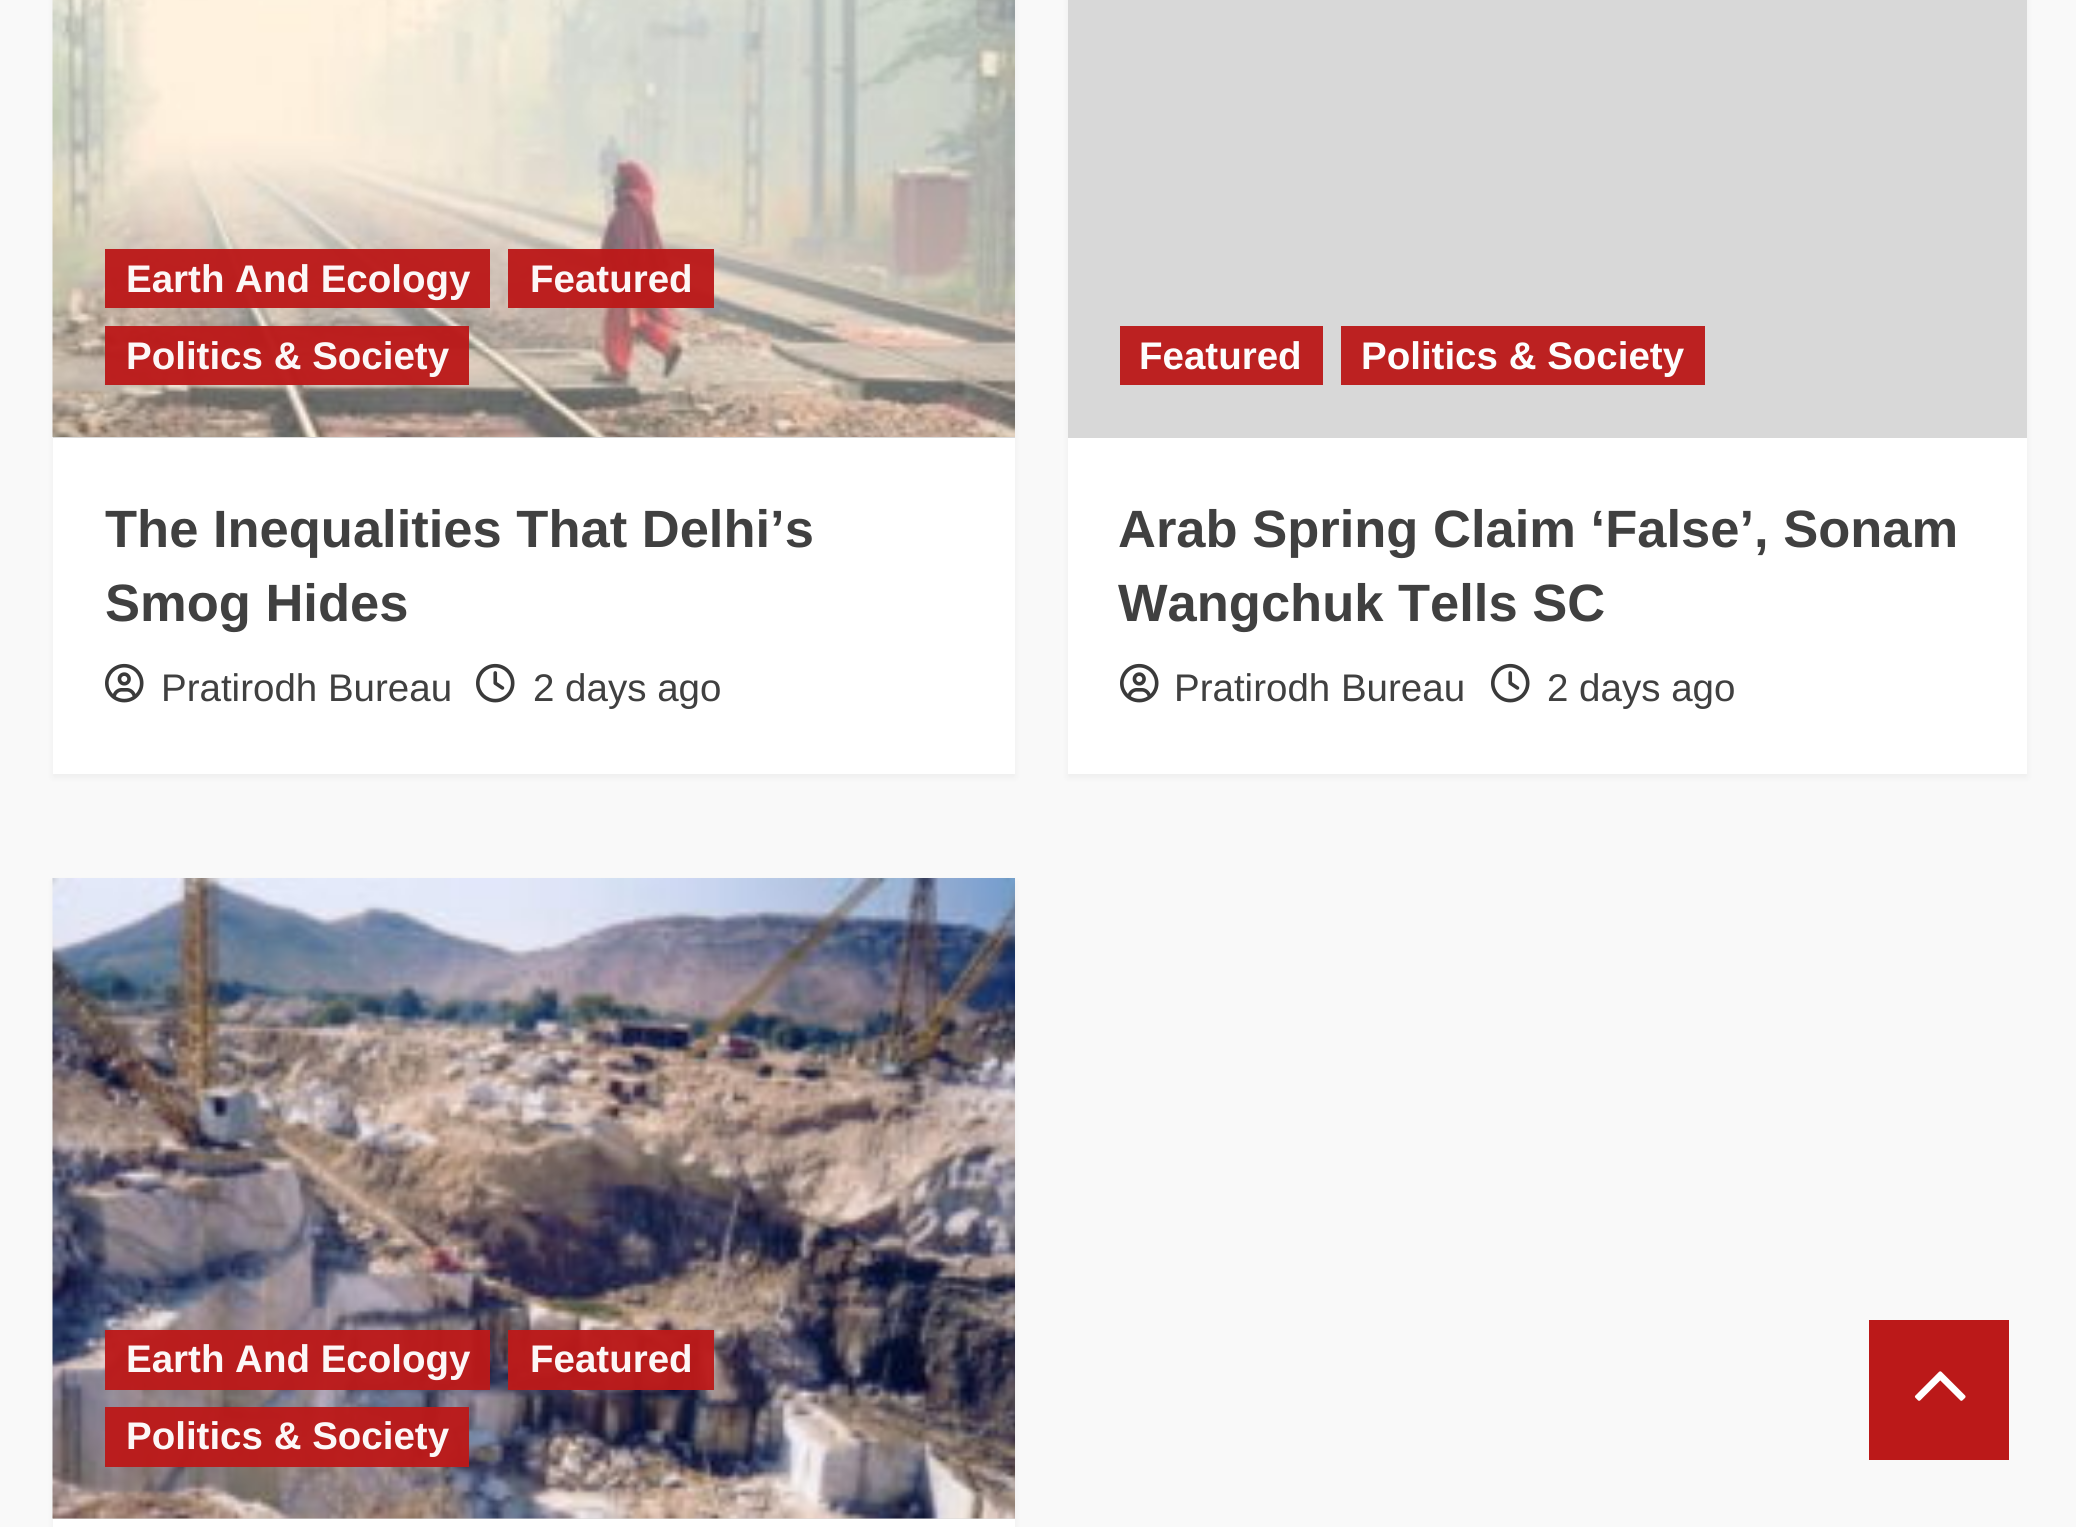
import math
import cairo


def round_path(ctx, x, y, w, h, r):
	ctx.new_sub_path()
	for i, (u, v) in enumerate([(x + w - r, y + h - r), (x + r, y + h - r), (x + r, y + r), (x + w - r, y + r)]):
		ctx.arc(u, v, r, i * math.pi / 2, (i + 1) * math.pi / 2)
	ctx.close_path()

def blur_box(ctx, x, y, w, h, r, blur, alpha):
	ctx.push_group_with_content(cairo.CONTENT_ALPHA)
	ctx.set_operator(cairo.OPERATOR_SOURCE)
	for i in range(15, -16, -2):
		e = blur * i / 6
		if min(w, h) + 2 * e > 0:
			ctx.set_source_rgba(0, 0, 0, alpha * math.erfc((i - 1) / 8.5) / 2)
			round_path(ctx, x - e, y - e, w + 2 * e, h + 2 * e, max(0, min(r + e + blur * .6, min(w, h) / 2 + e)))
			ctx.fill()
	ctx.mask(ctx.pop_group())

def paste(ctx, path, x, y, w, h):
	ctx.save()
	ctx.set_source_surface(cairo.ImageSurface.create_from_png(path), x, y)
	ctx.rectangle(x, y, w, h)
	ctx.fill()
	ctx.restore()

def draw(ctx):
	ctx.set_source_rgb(0.976, 0.976, 0.976)
	ctx.paint()
	ctx.set_source_rgb(0, 0, 0)
	blur_box(ctx, 53, -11, 962, 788, 0, 3.5, 0.05)
	ctx.set_source_rgb(1, 1, 1)
	ctx.rectangle(53, 438, 962, 336)
	ctx.fill()
	ctx.set_source_rgb(0.847, 0.847, 0.847)
	ctx.rectangle(53, 437, 962, 1)
	ctx.fill()
	paste(ctx, 'media/1.png', 52, 0, 963, 437)
	ctx.set_source_rgba(0.733, 0.098, 0.098, 0.96)
	ctx.rectangle(105, 249, 385, 59)
	ctx.fill()
	ctx.select_font_face('Liberation Sans', cairo.FONT_SLANT_NORMAL, cairo.FONT_WEIGHT_BOLD)
	ctx.set_font_size(38.5)
	ctx.set_source_rgb(0.988, 0.965, 0.965)
	ctx.move_to(126, 292)
	ctx.show_text('Earth And Ecology')
	ctx.set_source_rgba(0.733, 0.098, 0.098, 0.96)
	ctx.rectangle(508, 249, 206, 59)
	ctx.fill()
	ctx.set_source_rgb(0.988, 0.965, 0.965)
	ctx.move_to(530, 292)
	ctx.show_text('Featured')
	ctx.set_source_rgba(0.733, 0.098, 0.098, 0.96)
	ctx.rectangle(105, 326, 364, 59)
	ctx.fill()
	ctx.set_source_rgb(0.988, 0.965, 0.965)
	ctx.move_to(126, 369)
	ctx.show_text('Politics & Society')
	ctx.set_font_size(52.5)
	ctx.set_source_rgb(0.251, 0.251, 0.251)
	ctx.move_to(105, 547)
	ctx.show_text('The Inequalities That Delhi’s')
	ctx.move_to(105, 621)
	ctx.show_text('Smog Hides')
	paste(ctx, 'media/2.png', 105, 663, 39, 40)
	ctx.select_font_face('Liberation Sans')
	ctx.set_font_size(38.5)
	ctx.move_to(161, 701)
	ctx.show_text('Pratirodh Bureau')
	paste(ctx, 'media/3.png', 476, 663, 39, 40)
	ctx.move_to(533, 701)
	ctx.show_text('2 days ago')
	ctx.set_source_rgb(0, 0, 0)
	blur_box(ctx, 1068, -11, 959, 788, 0, 3.5, 0.05)
	ctx.set_source_rgb(1, 1, 1)
	ctx.rectangle(1068, 438, 959, 336)
	ctx.fill()
	ctx.set_source_rgb(0.847, 0.847, 0.847)
	ctx.rectangle(1068, 0, 959, 438)
	ctx.fill()
	ctx.set_source_rgb(0.737, 0.129, 0.129)
	ctx.rectangle(1120, 326, 203, 59)
	ctx.fill()
	ctx.select_font_face('Liberation Sans', cairo.FONT_SLANT_NORMAL, cairo.FONT_WEIGHT_BOLD)
	ctx.set_source_rgb(0.992, 0.992, 0.992)
	ctx.move_to(1139, 369)
	ctx.show_text('Featured')
	ctx.set_source_rgb(0.737, 0.129, 0.129)
	ctx.rectangle(1341, 326, 364, 59)
	ctx.fill()
	ctx.set_source_rgb(0.992, 0.992, 0.992)
	ctx.move_to(1361, 369)
	ctx.show_text('Politics & Society')
	ctx.set_font_size(52.5)
	ctx.set_source_rgb(0.251, 0.251, 0.251)
	ctx.move_to(1118, 547)
	ctx.show_text('Arab Spring Claim ‘False’, Sonam')
	ctx.move_to(1118, 621)
	ctx.show_text('Wangchuk Tells SC')
	paste(ctx, 'media/2.png', 1120, 663, 39, 40)
	ctx.select_font_face('Liberation Sans')
	ctx.set_font_size(38.5)
	ctx.move_to(1174, 701)
	ctx.show_text('Pratirodh Bureau')
	paste(ctx, 'media/3.png', 1491, 663, 39, 40)
	ctx.move_to(1547, 701)
	ctx.show_text('2 days ago')
	ctx.set_source_rgb(0, 0, 0)
	blur_box(ctx, 53, 882, 962, 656, 0, 3.5, 0.05)
	ctx.set_source_rgb(1, 1, 1)
	ctx.rectangle(53, 1519, 962, 8)
	ctx.fill()
	ctx.set_source_rgb(0.847, 0.847, 0.847)
	ctx.rectangle(53, 1518, 962, 1)
	ctx.fill()
	paste(ctx, 'media/4.png', 52, 878, 963, 641)
	ctx.set_source_rgba(0.733, 0.098, 0.098, 0.96)
	ctx.rectangle(105, 1330, 385, 60)
	ctx.fill()
	ctx.select_font_face('Liberation Sans', cairo.FONT_SLANT_NORMAL, cairo.FONT_WEIGHT_BOLD)
	ctx.set_source_rgb(0.988, 0.965, 0.965)
	ctx.move_to(126, 1372)
	ctx.show_text('Earth And Ecology')
	ctx.set_source_rgba(0.733, 0.098, 0.098, 0.96)
	ctx.rectangle(508, 1330, 206, 60)
	ctx.fill()
	ctx.set_source_rgb(0.988, 0.965, 0.965)
	ctx.move_to(530, 1372)
	ctx.show_text('Featured')
	ctx.set_source_rgba(0.733, 0.098, 0.098, 0.96)
	ctx.rectangle(105, 1407, 364, 60)
	ctx.fill()
	ctx.set_source_rgb(0.988, 0.965, 0.965)
	ctx.move_to(126, 1449)
	ctx.show_text('Politics & Society')
	ctx.set_source_rgb(0.733, 0.098, 0.098)
	ctx.rectangle(1869, 1320, 140, 140)
	ctx.fill()
	paste(ctx, 'media/5.png', 1914, 1371, 52, 30)


surface = cairo.ImageSurface(cairo.FORMAT_RGB24, 2076, 1527)
ctx = cairo.Context(surface)
options = cairo.FontOptions()
options.set_hint_metrics(cairo.HINT_METRICS_OFF)
options.set_hint_style(cairo.HINT_STYLE_NONE)
ctx.set_font_options(options)
ctx.set_miter_limit(4)
draw(ctx)
surface.write_to_png('image.png')
